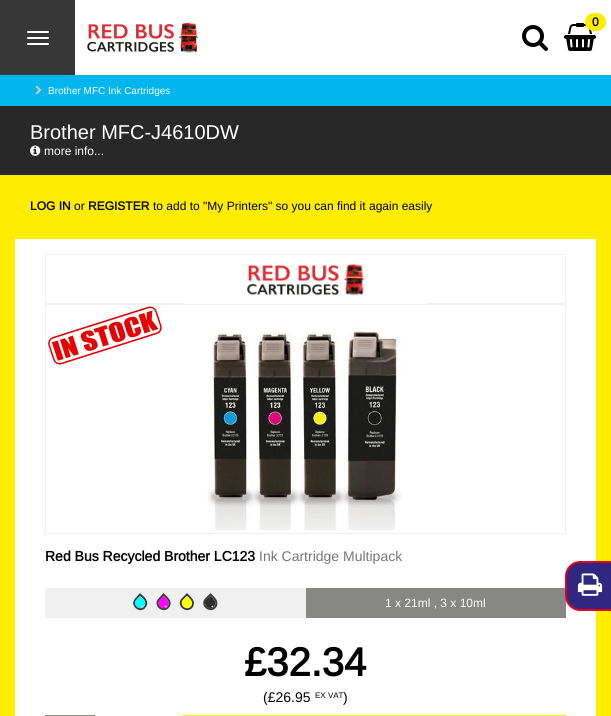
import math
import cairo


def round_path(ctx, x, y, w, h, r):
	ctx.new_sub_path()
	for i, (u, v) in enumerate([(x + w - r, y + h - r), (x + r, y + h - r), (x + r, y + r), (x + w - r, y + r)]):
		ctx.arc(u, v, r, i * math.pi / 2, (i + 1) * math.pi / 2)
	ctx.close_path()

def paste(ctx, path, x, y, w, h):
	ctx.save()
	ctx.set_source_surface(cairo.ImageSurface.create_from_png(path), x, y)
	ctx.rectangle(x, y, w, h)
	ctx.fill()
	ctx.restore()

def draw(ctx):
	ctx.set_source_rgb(1, 1, 1)
	ctx.paint()
	ctx.set_source_rgb(0.216, 0.216, 0.216)
	ctx.rectangle(0, 0, 75, 75)
	ctx.fill()
	ctx.set_source_rgb(1, 1, 1)
	round_path(ctx, 27, 31, 22, 2, 1)
	ctx.fill()
	round_path(ctx, 27, 37, 22, 2, 1)
	ctx.fill()
	round_path(ctx, 27, 43, 22, 2, 1)
	ctx.fill()
	paste(ctx, 'media/1.png', 87, 22, 111, 31)
	paste(ctx, 'media/2.png', 564, 23, 32, 28)
	ctx.set_source_rgb(1, 0.929, 0)
	round_path(ctx, 585, 13, 21, 18, 9)
	ctx.fill()
	ctx.select_font_face('Arimo', cairo.FONT_SLANT_NORMAL, cairo.FONT_WEIGHT_BOLD)
	ctx.set_font_size(12)
	ctx.set_source_rgb(0, 0, 0)
	ctx.move_to(592, 26)
	ctx.show_text('0')
	paste(ctx, 'media/3.png', 522, 25, 26, 26)
	ctx.set_source_rgb(0, 0.714, 0.929)
	ctx.rectangle(0, 75, 611, 31)
	ctx.fill()
	paste(ctx, 'media/4.png', 35, 85, 7, 10)
	ctx.select_font_face('Arimo')
	ctx.set_font_size(10)
	ctx.set_source_rgb(1, 1, 1)
	ctx.move_to(48, 94)
	ctx.show_text('Brother MFC Ink Cartridges')
	ctx.set_source_rgb(0.157, 0.157, 0.157)
	ctx.rectangle(0, 106, 611, 69)
	ctx.fill()
	ctx.set_font_size(20)
	ctx.set_source_rgb(1, 1, 1)
	ctx.move_to(30, 139)
	ctx.show_text('Brother MFC-J4610DW')
	paste(ctx, 'media/5.png', 30, 145, 11, 11)
	ctx.set_font_size(12)
	ctx.move_to(44, 155)
	ctx.show_text('more info...')
	ctx.set_source_rgb(1, 0.929, 0)
	ctx.rectangle(0, 175, 611, 541)
	ctx.fill()
	ctx.select_font_face('Arimo', cairo.FONT_SLANT_NORMAL, cairo.FONT_WEIGHT_BOLD)
	ctx.set_source_rgb(0, 0, 0)
	ctx.move_to(30, 210)
	ctx.show_text('LOG IN')
	ctx.select_font_face('Arimo')
	ctx.move_to(74, 210)
	ctx.show_text('or')
	ctx.select_font_face('Arimo', cairo.FONT_SLANT_NORMAL, cairo.FONT_WEIGHT_BOLD)
	ctx.move_to(88, 210)
	ctx.show_text('REGISTER')
	ctx.select_font_face('Arimo')
	ctx.move_to(153, 210)
	ctx.show_text('to add to "My Printers" so you can find it again easily')
	ctx.set_source_rgb(1, 1, 1)
	ctx.rectangle(15, 239, 581, 477)
	ctx.fill()
	ctx.rectangle(45.5, 254.5, 520, 49)
	ctx.set_source_rgb(0.941, 0.941, 0.941)
	ctx.set_line_width(1)
	ctx.stroke()
	paste(ctx, 'media/6.png', 184, 263, 243, 41)
	ctx.rectangle(45.5, 304.5, 520, 229)
	ctx.stroke()
	paste(ctx, 'media/7.png', 48, 306, 114, 59)
	paste(ctx, 'media/8.png', 207, 326, 195, 204)
	ctx.select_font_face('Arimo', cairo.FONT_SLANT_NORMAL, cairo.FONT_WEIGHT_BOLD)
	ctx.set_font_size(14)
	ctx.set_source_rgb(0, 0, 0)
	ctx.move_to(45, 561)
	ctx.show_text('Red Bus Recycled Brother LC123')
	ctx.select_font_face('Arimo')
	ctx.set_source_rgb(0.467, 0.467, 0.467)
	ctx.move_to(259, 561)
	ctx.show_text('Ink Cartridge Multipack')
	ctx.set_source_rgb(0.941, 0.941, 0.941)
	ctx.rectangle(45, 588, 261, 30)
	ctx.fill()
	ctx.new_path()
	ctx.move_to(140, 594.5)
	ctx.curve_to(143.5, 597.5, 148.5, 601.5, 145, 606.5)
	ctx.curve_to(140.5, 613.5, 130, 605, 136, 599)
	ctx.close_path()
	ctx.set_source_rgb(0.235, 0.235, 0.235)
	ctx.set_line_width(2)
	ctx.stroke()
	ctx.set_source_rgb(0, 1, 1)
	ctx.new_path()
	ctx.move_to(140, 596)
	ctx.curve_to(143, 598.5, 147, 601.5, 144.5, 606)
	ctx.curve_to(140.5, 612, 131.5, 604.5, 136.5, 599.5)
	ctx.close_path()
	ctx.fill()
	ctx.set_source_rgb(0.949, 1, 1)
	ctx.new_path()
	ctx.move_to(143, 606)
	ctx.curve_to(144, 606.5, 142.5, 608, 141.5, 607)
	ctx.curve_to(140.5, 606.5, 142, 605, 143, 606)
	ctx.close_path()
	ctx.fill()
	ctx.new_path()
	ctx.move_to(163.5, 594.5)
	ctx.curve_to(166.5, 597.5, 172, 601.5, 168.5, 606.5)
	ctx.curve_to(164, 613.5, 153, 605, 159.5, 599)
	ctx.close_path()
	ctx.set_source_rgb(0.235, 0.235, 0.235)
	ctx.stroke()
	ctx.set_source_rgb(1, 0, 1)
	ctx.new_path()
	ctx.move_to(163.5, 596)
	ctx.curve_to(166, 598.5, 170.5, 601.5, 168, 606)
	ctx.curve_to(163.5, 612, 155, 604.5, 160, 599.5)
	ctx.close_path()
	ctx.fill()
	ctx.set_source_rgb(1, 0.949, 1)
	ctx.new_path()
	ctx.move_to(166.5, 606)
	ctx.curve_to(167.5, 606.5, 166, 608, 165, 607)
	ctx.curve_to(164, 606.5, 165.5, 605, 166.5, 606)
	ctx.close_path()
	ctx.fill()
	ctx.new_path()
	ctx.move_to(187, 594.5)
	ctx.curve_to(190, 597.5, 195, 601.5, 192, 606.5)
	ctx.curve_to(187, 613.5, 176.5, 605, 182.5, 599)
	ctx.close_path()
	ctx.set_source_rgb(0.235, 0.235, 0.235)
	ctx.stroke()
	ctx.set_source_rgb(1, 1, 0)
	ctx.new_path()
	ctx.move_to(187, 596)
	ctx.curve_to(189.5, 598.5, 194, 601.5, 191, 606)
	ctx.curve_to(187, 612, 178.5, 604.5, 183.5, 599.5)
	ctx.close_path()
	ctx.fill()
	ctx.set_source_rgb(1, 1, 0.949)
	ctx.new_path()
	ctx.move_to(190, 606)
	ctx.curve_to(190.5, 606.5, 189, 608, 188.5, 607)
	ctx.curve_to(187.5, 606.5, 189, 605, 190, 606)
	ctx.close_path()
	ctx.fill()
	ctx.new_path()
	ctx.move_to(210.5, 594.5)
	ctx.curve_to(213.5, 597.5, 218.5, 601.5, 215.5, 606.5)
	ctx.curve_to(210.5, 613.5, 200, 605, 206, 599)
	ctx.close_path()
	ctx.set_source_rgb(0.235, 0.235, 0.235)
	ctx.stroke()
	ctx.set_source_rgb(0.176, 0.176, 0.176)
	ctx.new_path()
	ctx.move_to(210.5, 596)
	ctx.curve_to(213, 598.5, 217, 601.5, 214.5, 606)
	ctx.curve_to(210.5, 612, 201.5, 604.5, 206.5, 599.5)
	ctx.close_path()
	ctx.fill()
	ctx.set_source_rgb(0.961, 0.961, 0.961)
	ctx.new_path()
	ctx.move_to(213, 606)
	ctx.curve_to(214, 606.5, 212.5, 608, 211.5, 607)
	ctx.curve_to(211, 606.5, 212, 605, 213, 606)
	ctx.close_path()
	ctx.fill()
	ctx.set_source_rgb(0.529, 0.529, 0.525)
	ctx.rectangle(306, 588, 260, 30)
	ctx.fill()
	ctx.set_font_size(12)
	ctx.set_source_rgb(1, 1, 1)
	ctx.move_to(385, 607)
	ctx.show_text('1 x 21ml , 3 x 10ml')
	ctx.select_font_face('Arimo', cairo.FONT_SLANT_NORMAL, cairo.FONT_WEIGHT_BOLD)
	ctx.set_font_size(40)
	ctx.set_source_rgb(0, 0, 0)
	ctx.move_to(244, 676)
	ctx.show_text('£32.34')
	ctx.select_font_face('Arimo')
	ctx.set_font_size(14)
	ctx.move_to(263, 702)
	ctx.show_text('(£26.95')
	ctx.set_font_size(8)
	ctx.move_to(315, 698)
	ctx.show_text('EX VAT')
	ctx.set_font_size(14)
	ctx.move_to(343, 702)
	ctx.show_text(')')
	ctx.set_source_rgb(0.529, 0.529, 0.525)
	ctx.rectangle(45, 715, 50, 1)
	ctx.fill()
	ctx.set_source_rgb(1, 0.929, 0)
	ctx.rectangle(183, 715, 383, 1)
	ctx.fill()
	ctx.set_source_rgb(0.192, 0.153, 0.514)
	ctx.new_path()
	ctx.move_to(580, 562)
	ctx.line_to(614, 562)
	ctx.line_to(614, 610)
	ctx.line_to(580, 610)
	ctx.curve_to(572.5, 610, 566, 603.5, 566, 596)
	ctx.line_to(566, 576)
	ctx.curve_to(566, 568.5, 572.5, 562, 580, 562)
	ctx.close_path()
	ctx.fill_preserve()
	ctx.set_source_rgb(0.89, 0, 0.122)
	ctx.stroke()
	paste(ctx, 'media/9.png', 577, 573, 26, 23)


surface = cairo.ImageSurface(cairo.FORMAT_RGB24, 611, 716)
ctx = cairo.Context(surface)
options = cairo.FontOptions()
options.set_hint_metrics(cairo.HINT_METRICS_OFF)
options.set_hint_style(cairo.HINT_STYLE_NONE)
ctx.set_font_options(options)
ctx.set_miter_limit(4)
draw(ctx)
surface.write_to_png('image.png')
